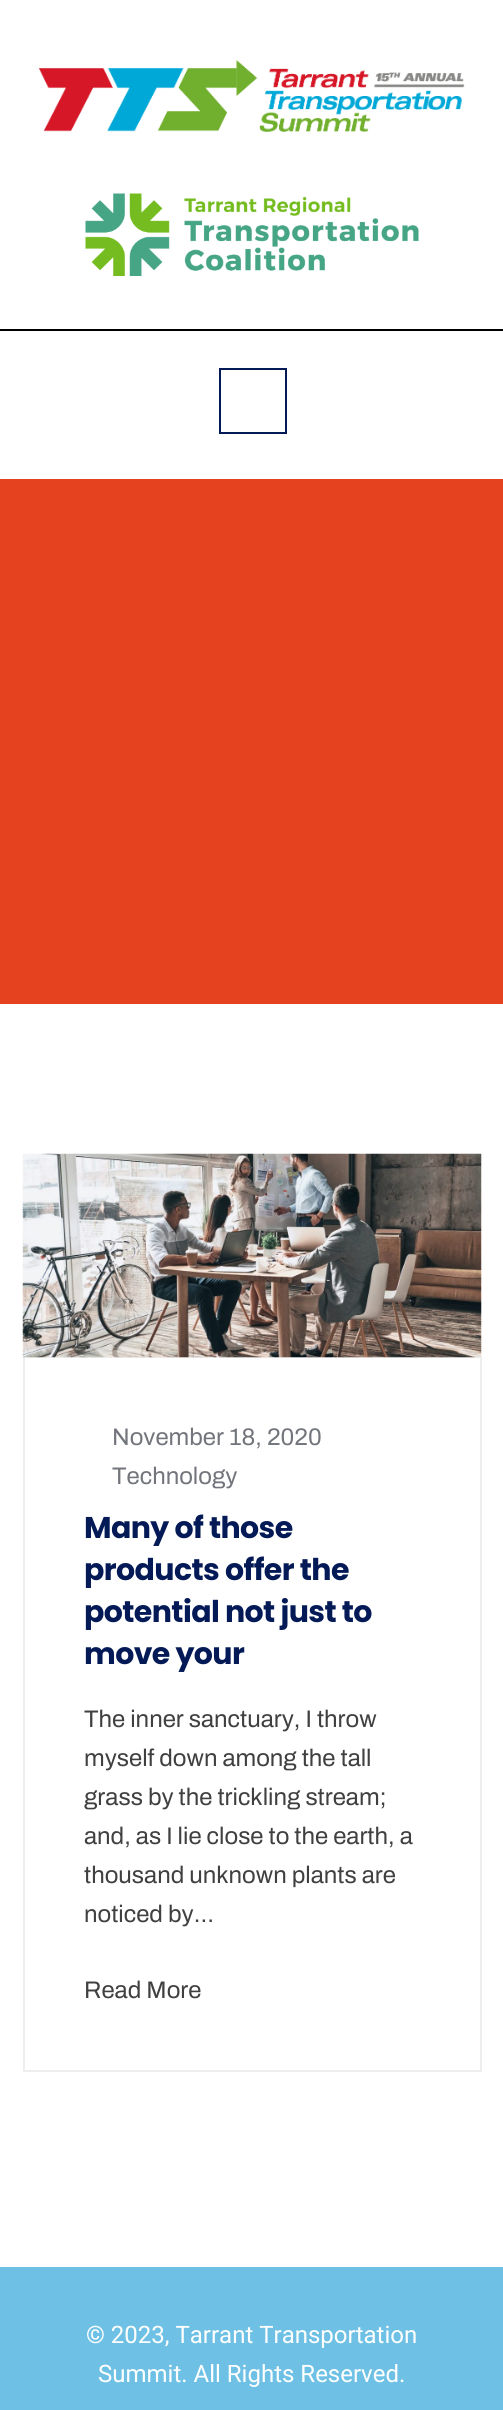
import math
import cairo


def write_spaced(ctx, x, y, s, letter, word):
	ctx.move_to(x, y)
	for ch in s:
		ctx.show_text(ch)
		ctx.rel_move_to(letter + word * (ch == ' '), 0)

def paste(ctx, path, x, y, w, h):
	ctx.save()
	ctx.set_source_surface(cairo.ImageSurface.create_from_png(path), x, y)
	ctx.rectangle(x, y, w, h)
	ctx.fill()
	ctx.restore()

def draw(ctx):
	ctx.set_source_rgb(1, 1, 1)
	ctx.paint()
	paste(ctx, 'media/1.png', 39, 60, 426, 72)
	paste(ctx, 'media/2.png', 85, 193, 334, 83)
	ctx.set_source_rgb(0, 0, 0)
	ctx.rectangle(0, 329, 503, 2)
	ctx.fill()
	ctx.rectangle(220, 369, 66, 64)
	ctx.set_source_rgb(0.016, 0.102, 0.341)
	ctx.stroke()
	ctx.set_source_rgb(0.898, 0.259, 0.125)
	ctx.rectangle(0, 479, 503, 525)
	ctx.fill()
	ctx.rectangle(24, 1357, 457, 714)
	ctx.set_source_rgb(0.933, 0.933, 0.933)
	ctx.stroke()
	paste(ctx, 'media/3.png', 22, 1153, 460, 205)
	ctx.select_font_face('Archivo')
	ctx.set_font_size(24)
	ctx.set_source_rgb(0.447, 0.459, 0.482)
	ctx.move_to(112, 1445)
	ctx.show_text('November 18, 2020')
	ctx.move_to(112, 1484)
	ctx.show_text('Technology')
	ctx.select_font_face('Poppins', cairo.FONT_SLANT_NORMAL, cairo.FONT_WEIGHT_BOLD)
	ctx.set_font_size(30)
	ctx.set_source_rgb(0.016, 0.102, 0.341)
	for x, y, s in [
		(84, 1538, 'Many of those'),
		(84, 1580, 'products offer the'),
		(84, 1622, 'potential not just to'),
		(84, 1664, 'move your'),
	]:
		write_spaced(ctx, x, y, s, -0.6, 0)
	ctx.select_font_face('Archivo')
	ctx.set_font_size(24)
	ctx.set_source_rgb(0.251, 0.251, 0.251)
	for x, y, s in [
		(84, 1727, 'The inner sanctuary, I throw'),
		(84, 1766, 'myself down among the tall'),
		(84, 1805, 'grass by the trickling stream;'),
		(84, 1844, 'and, as I lie close to the earth, a'),
		(84, 1883, 'thousand unknown plants are'),
		(84, 1922, 'noticed by…'),
		(84, 1998, 'Read More'),
	]:
		ctx.move_to(x, y)
		ctx.show_text(s)
	ctx.set_source_rgb(0.431, 0.757, 0.894)
	ctx.rectangle(0, 2267, 503, 143)
	ctx.fill()
	ctx.select_font_face('Roboto')
	ctx.set_source_rgb(1, 1, 1)
	ctx.move_to(86, 2343)
	ctx.show_text('© 2023, Tarrant Transportation')
	ctx.move_to(98, 2382)
	ctx.show_text('Summit. All Rights Reserved.')


surface = cairo.ImageSurface(cairo.FORMAT_RGB24, 503, 2410)
ctx = cairo.Context(surface)
options = cairo.FontOptions()
options.set_hint_metrics(cairo.HINT_METRICS_OFF)
options.set_hint_style(cairo.HINT_STYLE_NONE)
ctx.set_font_options(options)
ctx.set_miter_limit(4)
draw(ctx)
surface.write_to_png('image.png')
